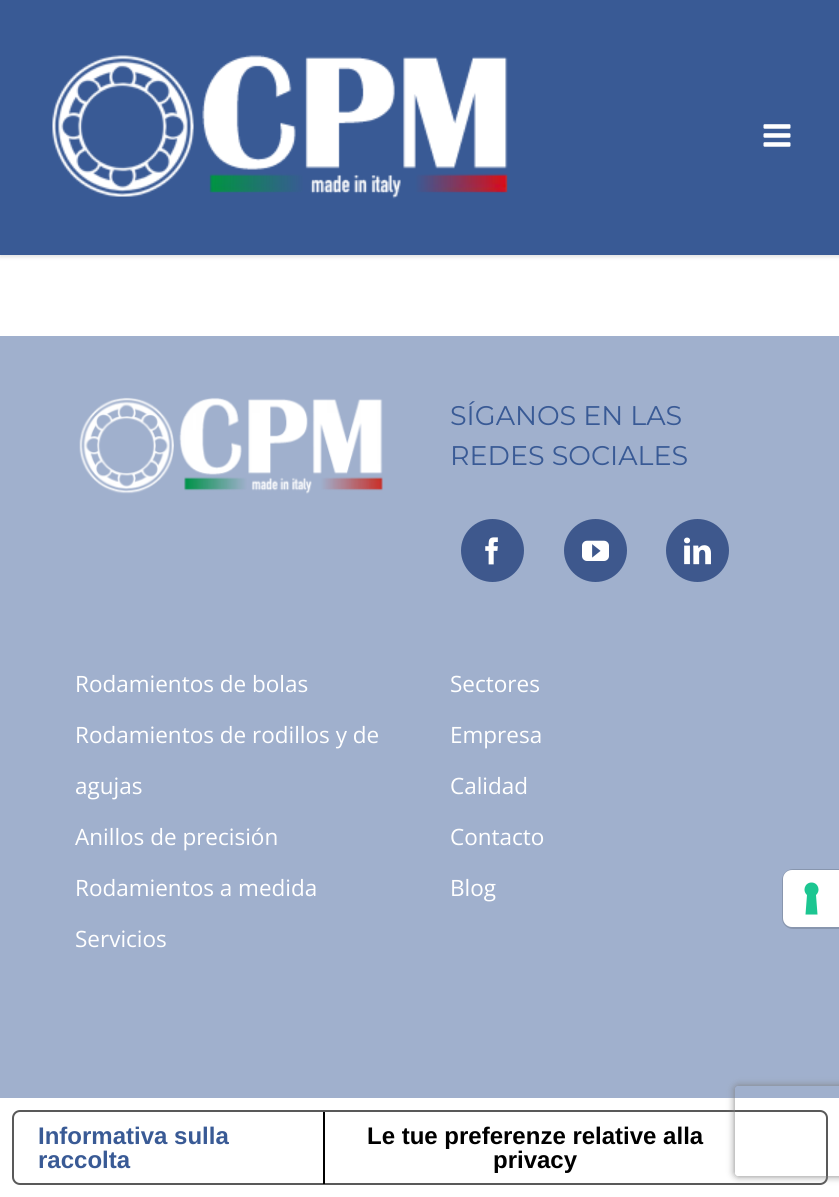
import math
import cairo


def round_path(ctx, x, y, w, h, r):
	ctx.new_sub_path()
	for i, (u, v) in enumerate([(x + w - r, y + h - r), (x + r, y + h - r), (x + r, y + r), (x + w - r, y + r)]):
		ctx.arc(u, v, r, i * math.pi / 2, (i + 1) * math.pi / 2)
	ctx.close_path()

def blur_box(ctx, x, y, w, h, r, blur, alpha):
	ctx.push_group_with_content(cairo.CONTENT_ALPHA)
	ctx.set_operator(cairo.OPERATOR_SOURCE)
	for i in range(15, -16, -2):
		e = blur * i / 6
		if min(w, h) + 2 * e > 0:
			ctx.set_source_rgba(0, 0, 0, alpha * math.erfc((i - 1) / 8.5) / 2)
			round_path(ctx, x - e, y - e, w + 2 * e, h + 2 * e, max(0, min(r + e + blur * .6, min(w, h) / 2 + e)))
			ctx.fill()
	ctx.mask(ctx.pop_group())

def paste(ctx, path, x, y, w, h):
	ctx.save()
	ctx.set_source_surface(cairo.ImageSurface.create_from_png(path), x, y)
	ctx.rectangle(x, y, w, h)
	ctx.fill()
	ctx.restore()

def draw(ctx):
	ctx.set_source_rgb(1, 1, 1)
	ctx.paint()
	ctx.set_source_rgb(0, 0, 0)
	blur_box(ctx, 0, 2, 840, 255, 0, 2, 0.12)
	ctx.set_source_rgb(0.224, 0.353, 0.584)
	ctx.rectangle(0, 0, 839, 255)
	ctx.fill()
	paste(ctx, 'media/1.png', 52, 55, 456, 144)
	paste(ctx, 'media/2.png', 763, 124, 28, 23)
	ctx.set_source_rgb(0.627, 0.69, 0.804)
	ctx.rectangle(0, 336, 839, 762)
	ctx.fill()
	paste(ctx, 'media/3.png', 79, 397, 304, 97)
	ctx.select_font_face('Montserrat Thin')
	ctx.set_font_size(27)
	ctx.set_source_rgb(0.224, 0.353, 0.584)
	ctx.move_to(450, 425)
	ctx.show_text('SÍGANOS EN LAS')
	ctx.move_to(450, 465)
	ctx.show_text('REDES SOCIALES')
	ctx.set_source_rgb(0.243, 0.345, 0.553)
	ctx.new_path()
	ctx.arc(492.5, 550.5, 31.5, 0, 2 * math.pi)
	ctx.fill()
	paste(ctx, 'media/4.png', 485, 537, 13, 28)
	ctx.arc(595.5, 550.5, 31.5, 0, 2 * math.pi)
	ctx.fill()
	paste(ctx, 'media/5.png', 582, 540, 27, 21)
	ctx.arc(697.5, 550.5, 31.5, 0, 2 * math.pi)
	ctx.fill()
	paste(ctx, 'media/6.png', 684, 537, 27, 28)
	ctx.select_font_face('Open Sans')
	ctx.set_font_size(22.5)
	ctx.set_source_rgb(1, 1, 1)
	for x, y, s in [
		(75, 692, 'Rodamientos de bolas'),
		(75, 743, 'Rodamientos de rodillos y de'),
		(75, 794, 'agujas'),
		(75, 845, 'Anillos de precisión'),
		(75, 896, 'Rodamientos a medida'),
		(75, 947, 'Servicios'),
		(450, 692, 'Sectores'),
		(450, 743, 'Empresa'),
		(450, 794, 'Calidad'),
		(450, 845, 'Contacto'),
		(450, 896, 'Blog'),
	]:
		ctx.move_to(x, y)
		ctx.show_text(s)
	ctx.new_path()
	ctx.move_to(793, 870)
	ctx.line_to(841, 870)
	ctx.line_to(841, 928)
	ctx.line_to(793, 928)
	ctx.curve_to(787.5, 928, 783, 923.5, 783, 918)
	ctx.line_to(783, 880)
	ctx.curve_to(783, 874.5, 787.5, 870, 793, 870)
	ctx.close_path()
	ctx.set_source_rgb(0.533, 0.588, 0.682)
	ctx.stroke()
	ctx.set_source_rgb(1, 1, 1)
	ctx.new_path()
	ctx.move_to(792, 870)
	ctx.line_to(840, 870)
	ctx.line_to(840, 927)
	ctx.line_to(792, 927)
	ctx.curve_to(787, 927, 783, 923, 783, 918)
	ctx.line_to(783, 879)
	ctx.curve_to(783, 874, 787, 870, 792, 870)
	ctx.close_path()
	ctx.fill()
	ctx.set_source_rgb(0.11, 0.776, 0.569)
	ctx.set_fill_rule(cairo.FILL_RULE_EVEN_ODD)
	ctx.new_path()
	ctx.move_to(811.5, 882.5)
	ctx.curve_to(818, 882.5, 821, 890.5, 816, 895)
	ctx.line_to(817.5, 914.5)
	ctx.line_to(805.5, 914.5)
	ctx.line_to(807, 895)
	ctx.curve_to(802, 890.5, 805, 882.5, 811.5, 882.5)
	ctx.close_path()
	ctx.fill()
	round_path(ctx, 13, 1111, 814, 73, 7)
	ctx.set_source_rgb(0.349, 0.349, 0.349)
	ctx.stroke()
	ctx.select_font_face('Liberation Sans', cairo.FONT_SLANT_NORMAL, cairo.FONT_WEIGHT_BOLD)
	ctx.set_font_size(24)
	ctx.set_source_rgb(0.224, 0.353, 0.584)
	ctx.move_to(38, 1144)
	ctx.show_text('Informativa sulla')
	ctx.move_to(38, 1168)
	ctx.show_text('raccolta')
	ctx.set_source_rgb(0, 0, 0)
	ctx.rectangle(323, 1112, 2, 72)
	ctx.fill()
	ctx.move_to(367, 1144)
	ctx.show_text('Le tue preferenze relative alla')
	ctx.move_to(493, 1168)
	ctx.show_text('privacy')
	ctx.save()
	ctx.new_path()
	ctx.move_to(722, 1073)
	ctx.line_to(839, 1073)
	ctx.line_to(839, 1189)
	ctx.line_to(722, 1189)
	ctx.close_path()
	ctx.move_to(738, 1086)
	ctx.line_to(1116, 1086)
	ctx.curve_to(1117.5, 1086, 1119, 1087.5, 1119, 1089)
	ctx.line_to(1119, 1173)
	ctx.curve_to(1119, 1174.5, 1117.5, 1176, 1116, 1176)
	ctx.line_to(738, 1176)
	ctx.curve_to(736.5, 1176, 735, 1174.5, 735, 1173)
	ctx.line_to(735, 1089)
	ctx.curve_to(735, 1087.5, 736.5, 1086, 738, 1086)
	ctx.close_path()
	ctx.clip()
	ctx.set_source_rgb(0.502, 0.502, 0.502)
	blur_box(ctx, 735, 1086, 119, 90, 3, 4, 1)
	ctx.restore()


surface = cairo.ImageSurface(cairo.FORMAT_RGB24, 839, 1197)
ctx = cairo.Context(surface)
options = cairo.FontOptions()
options.set_hint_metrics(cairo.HINT_METRICS_OFF)
options.set_hint_style(cairo.HINT_STYLE_NONE)
ctx.set_font_options(options)
ctx.set_miter_limit(4)
draw(ctx)
surface.write_to_png('image.png')
